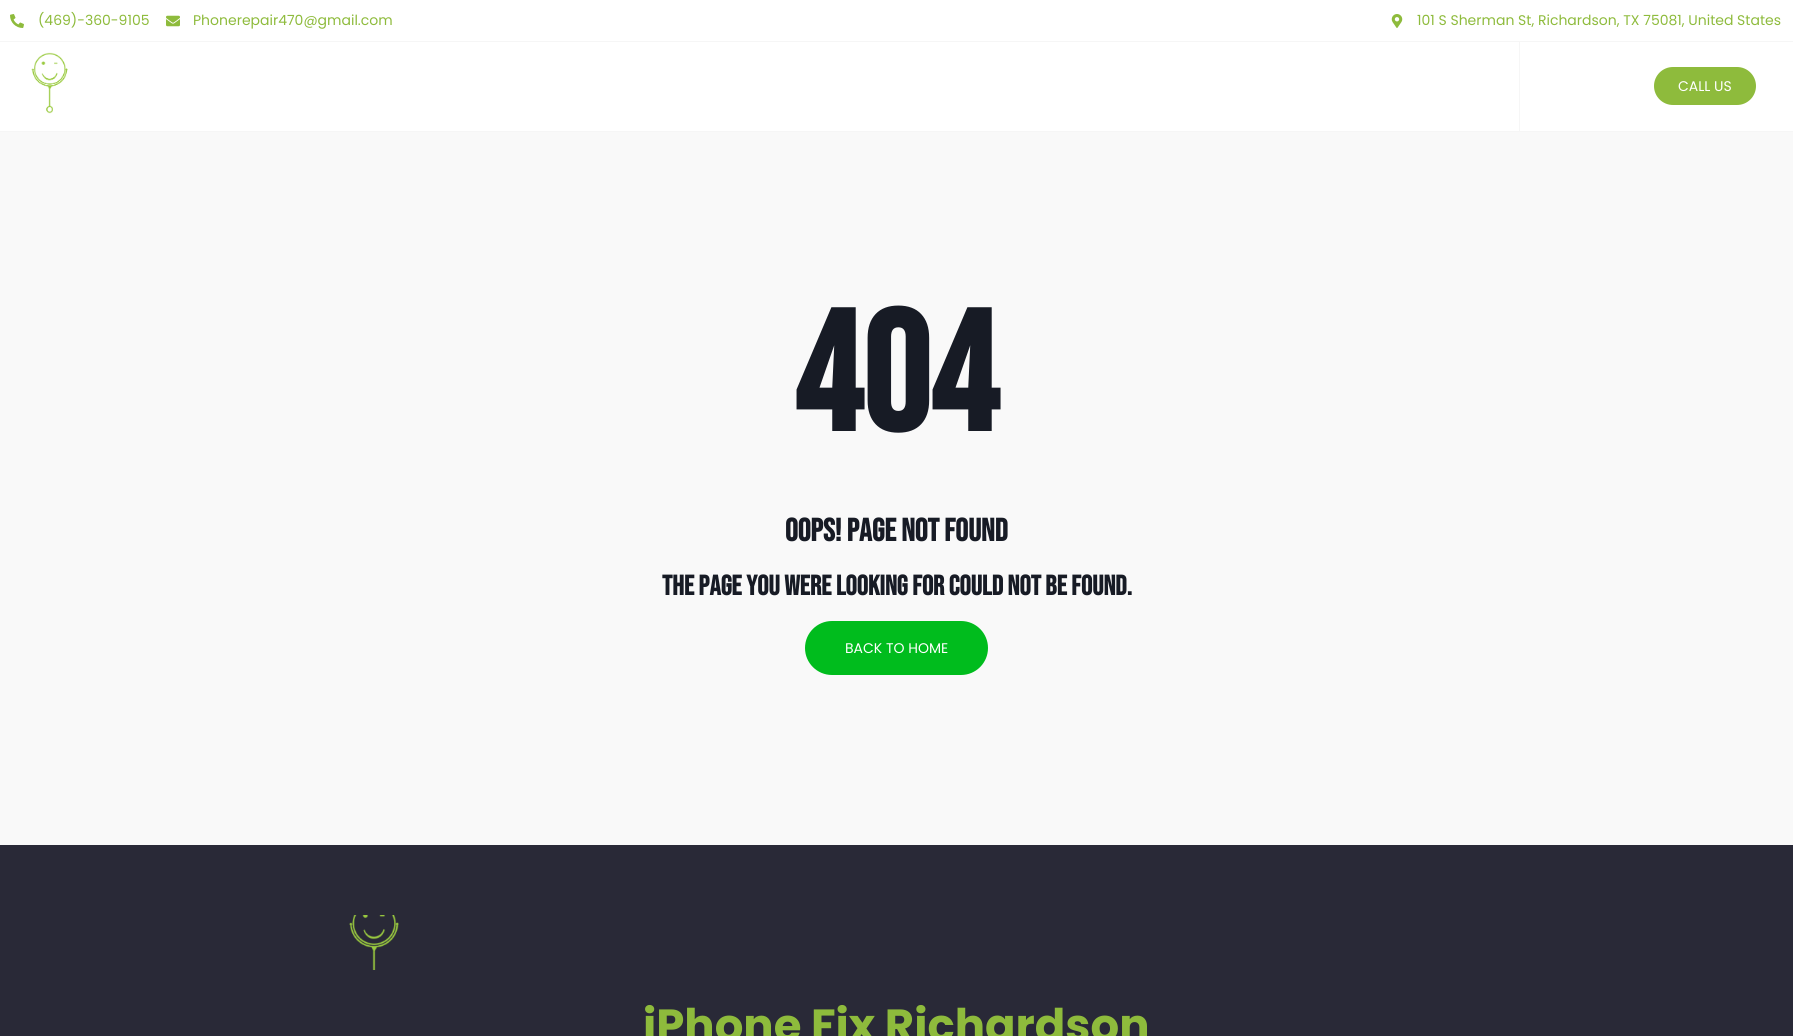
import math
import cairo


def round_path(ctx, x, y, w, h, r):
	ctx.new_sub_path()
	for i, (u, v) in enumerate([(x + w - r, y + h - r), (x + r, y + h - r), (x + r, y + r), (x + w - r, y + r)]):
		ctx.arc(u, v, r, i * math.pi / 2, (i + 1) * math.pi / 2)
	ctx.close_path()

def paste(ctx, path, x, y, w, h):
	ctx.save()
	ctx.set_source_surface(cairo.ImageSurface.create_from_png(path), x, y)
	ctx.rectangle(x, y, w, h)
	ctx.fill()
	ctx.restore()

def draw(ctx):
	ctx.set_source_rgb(1, 1, 1)
	ctx.paint()
	ctx.set_source_rgb(0.961, 0.961, 0.961)
	ctx.rectangle(0, 41, 1793, 1)
	ctx.fill()
	paste(ctx, 'media/1.png', 10, 14, 14, 14)
	ctx.select_font_face('Poppins')
	ctx.set_font_size(14)
	ctx.set_source_rgb(0.557, 0.733, 0.235)
	ctx.move_to(38, 25)
	ctx.show_text('(469)-360-9105')
	paste(ctx, 'media/2.png', 166, 15, 14, 12)
	ctx.move_to(193, 25)
	ctx.show_text('Phonerepair470@gmail.com')
	paste(ctx, 'media/3.png', 1391, 14, 12, 14)
	ctx.move_to(1417, 25)
	ctx.show_text('101 S Sherman St, Richardson, TX 75081, United States')
	ctx.set_source_rgb(0.961, 0.961, 0.961)
	ctx.rectangle(0, 131, 1793, 1)
	ctx.fill()
	paste(ctx, 'media/4.png', 31, 52, 37, 62)
	ctx.rectangle(1519, 42, 1, 89)
	ctx.fill()
	ctx.set_source_rgb(0.557, 0.733, 0.235)
	round_path(ctx, 1654, 67, 102, 38, 19)
	ctx.fill()
	ctx.set_source_rgb(1, 1, 1)
	ctx.move_to(1678, 91)
	ctx.show_text('CALL US')
	ctx.set_source_rgb(0.976, 0.976, 0.976)
	ctx.rectangle(0, 132, 1793, 713)
	ctx.fill()
	ctx.select_font_face('Bebas Neue', cairo.FONT_SLANT_NORMAL, cairo.FONT_WEIGHT_BOLD)
	ctx.set_font_size(170)
	ctx.set_source_rgb(0.09, 0.106, 0.145)
	ctx.move_to(794, 431)
	ctx.show_text('404')
	ctx.set_font_size(32)
	ctx.move_to(785, 541)
	ctx.show_text('Oops! Page Not Found')
	ctx.set_font_size(28)
	ctx.move_to(662, 595)
	ctx.show_text('The page you were looking for could not be found.')
	ctx.set_source_rgb(0, 0.737, 0.114)
	round_path(ctx, 805, 621, 183, 54, 27)
	ctx.fill()
	ctx.select_font_face('Poppins')
	ctx.set_font_size(14)
	ctx.set_source_rgb(1, 1, 1)
	ctx.move_to(845, 653)
	ctx.show_text('BACK TO HOME')
	ctx.set_source_rgb(0.161, 0.161, 0.216)
	ctx.rectangle(0, 845, 1793, 191)
	ctx.fill()
	paste(ctx, 'media/5.png', 349, 915, 50, 55)
	ctx.select_font_face('Poppins', cairo.FONT_SLANT_NORMAL, cairo.FONT_WEIGHT_BOLD)
	ctx.set_font_size(45)
	ctx.set_source_rgb(0.557, 0.733, 0.235)
	ctx.move_to(643, 1041)
	ctx.show_text('iPhone Fix Richardson')


surface = cairo.ImageSurface(cairo.FORMAT_RGB24, 1793, 1036)
ctx = cairo.Context(surface)
options = cairo.FontOptions()
options.set_hint_metrics(cairo.HINT_METRICS_OFF)
options.set_hint_style(cairo.HINT_STYLE_NONE)
ctx.set_font_options(options)
ctx.set_miter_limit(4)
draw(ctx)
surface.write_to_png('image.png')
